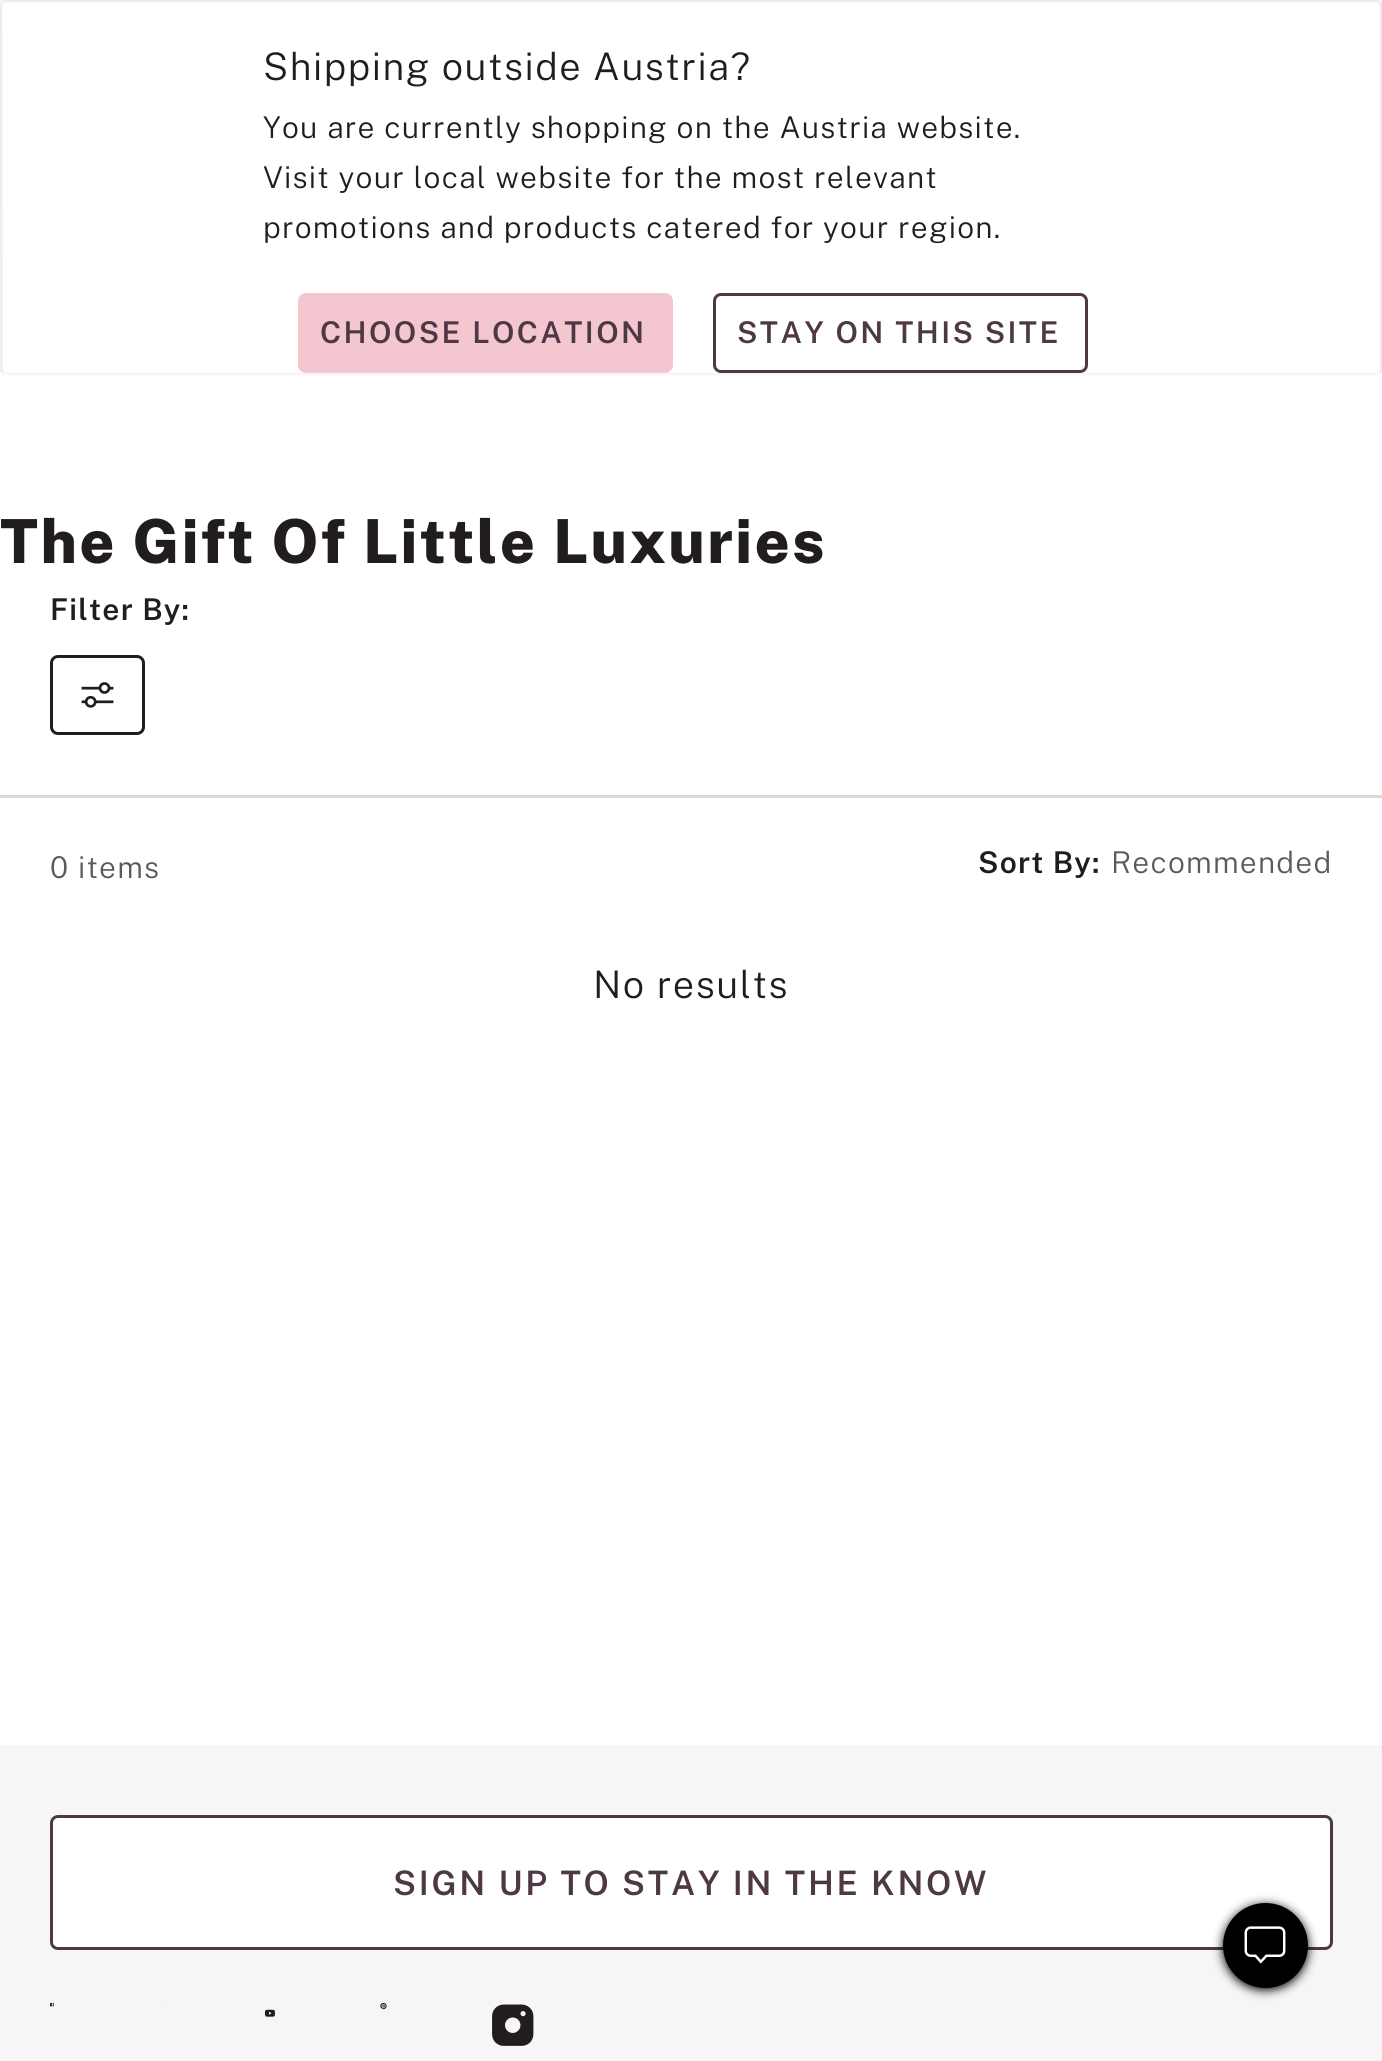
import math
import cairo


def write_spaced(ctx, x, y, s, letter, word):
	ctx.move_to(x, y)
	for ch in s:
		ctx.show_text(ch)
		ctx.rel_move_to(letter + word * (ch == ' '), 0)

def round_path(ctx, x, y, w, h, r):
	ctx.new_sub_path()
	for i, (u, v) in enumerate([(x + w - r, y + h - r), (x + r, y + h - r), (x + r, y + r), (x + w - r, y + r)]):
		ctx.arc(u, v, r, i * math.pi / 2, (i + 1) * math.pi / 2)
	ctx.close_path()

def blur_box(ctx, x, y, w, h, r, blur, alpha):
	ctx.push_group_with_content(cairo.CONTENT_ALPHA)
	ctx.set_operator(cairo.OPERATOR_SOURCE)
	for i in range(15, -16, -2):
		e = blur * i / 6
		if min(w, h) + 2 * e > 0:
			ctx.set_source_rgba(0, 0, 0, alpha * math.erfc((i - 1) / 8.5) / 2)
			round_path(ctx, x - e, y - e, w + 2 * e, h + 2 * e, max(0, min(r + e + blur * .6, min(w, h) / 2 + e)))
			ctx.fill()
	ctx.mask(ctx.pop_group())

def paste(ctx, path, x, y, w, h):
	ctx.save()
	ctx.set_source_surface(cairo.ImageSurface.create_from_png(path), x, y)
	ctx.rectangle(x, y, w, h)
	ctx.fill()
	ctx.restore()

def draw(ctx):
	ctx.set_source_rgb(1, 1, 1)
	ctx.paint()
	ctx.set_source_rgb(0.976, 0.973, 0.976)
	ctx.rectangle(0, 0, 1382, 5)
	ctx.fill()
	ctx.set_source_rgb(1, 1, 1)
	round_path(ctx, 0, 0, 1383, 375, 5)
	ctx.fill()
	ctx.new_path()
	ctx.move_to(1380, 372.5)
	ctx.line_to(1377.5, 374)
	ctx.line_to(5, 374)
	ctx.line_to(2.5, 372.5)
	ctx.set_source_rgb(0.961, 0.961, 0.965)
	ctx.set_line_width(2.5)
	ctx.stroke()
	ctx.new_path()
	ctx.move_to(2.5, 372.5)
	ctx.line_to(1.5, 370.5)
	ctx.line_to(1, 5)
	ctx.curve_to(1.5, 3, 3, 1.5, 5, 1)
	ctx.line_to(1377.5, 1)
	ctx.curve_to(1379.5, 1.5, 1381, 3, 1381, 5)
	ctx.line_to(1381, 370.5)
	ctx.line_to(1380, 372.5)
	ctx.set_source_rgb(0.937, 0.925, 0.918)
	ctx.stroke()
	ctx.select_font_face('Public Sans Light')
	ctx.set_font_size(38)
	ctx.set_source_rgb(0.133, 0.114, 0.114)
	write_spaced(ctx, 263, 80, 'Shipping outside Austria?', 1.5, 0)
	ctx.set_font_size(30)
	for x, y, s in [
		(263, 138, 'You are currently shopping on the Austria website.'),
		(263, 188, 'Visit your local website for the most relevant'),
		(263, 238, 'promotions and products catered for your region.'),
	]:
		write_spaced(ctx, x, y, s, 1.2, 0)
	ctx.set_source_rgb(0.957, 0.776, 0.812)
	round_path(ctx, 299.5, 294.5, 372, 77, 6.5)
	ctx.fill_preserve()
	ctx.set_line_width(3)
	ctx.stroke()
	ctx.select_font_face('Public Sans SemiBold')
	ctx.set_source_rgb(0.306, 0.22, 0.267)
	write_spaced(ctx, 320, 343, 'CHOOSE LOCATION', 2.4, 0)
	ctx.set_source_rgb(1, 1, 1)
	round_path(ctx, 714.5, 294.5, 372, 77, 6.5)
	ctx.fill_preserve()
	ctx.set_source_rgb(0.306, 0.22, 0.267)
	ctx.stroke()
	write_spaced(ctx, 737, 343, 'STAY ON THIS SITE', 2.4, 0)
	ctx.select_font_face('Public Sans ExtraBold')
	ctx.set_font_size(60.75)
	ctx.set_source_rgb(0.133, 0.114, 0.114)
	write_spaced(ctx, 0, 563, 'The Gift Of Little Luxuries', 2.4, 0)
	ctx.select_font_face('Public Sans SemiBold')
	ctx.set_font_size(30)
	write_spaced(ctx, 50, 620, 'Filter By:', 1.2, 0)
	round_path(ctx, 51.5, 656.5, 92, 77, 6.5)
	ctx.stroke()
	paste(ctx, 'media/1.png', 81, 682, 33, 26)
	ctx.set_source_rgb(0.878, 0.855, 0.835)
	ctx.rectangle(0, 795, 1382, 3)
	ctx.fill()
	ctx.select_font_face('Public Sans Light')
	ctx.set_source_rgb(0.376, 0.345, 0.345)
	write_spaced(ctx, 50, 878, '0 items', 1.2, 0)
	ctx.select_font_face('Public Sans SemiBold')
	ctx.set_source_rgb(0.133, 0.114, 0.114)
	write_spaced(ctx, 978, 873, 'Sort By:', 1.2, 0)
	ctx.select_font_face('Public Sans Light')
	ctx.set_source_rgb(0.376, 0.345, 0.345)
	write_spaced(ctx, 1111, 873, 'Recommended', 1.2, 0)
	ctx.set_font_size(38)
	ctx.set_source_rgb(0.133, 0.114, 0.114)
	write_spaced(ctx, 593, 998, 'No results', 1.5, 0)
	ctx.set_source_rgb(0.961, 0.961, 0.965)
	ctx.rectangle(0, 1745, 1382, 316)
	ctx.fill()
	ctx.set_source_rgb(1, 1, 1)
	round_path(ctx, 51.5, 1816.5, 1280, 132, 6.5)
	ctx.fill_preserve()
	ctx.set_source_rgb(0.306, 0.22, 0.267)
	ctx.stroke()
	ctx.set_source_rgb(0, 0, 0)
	blur_box(ctx, 1223, 1905, 85, 85, 42.5, 5, 1)
	ctx.set_source_rgb(0, 0, 0)
	ctx.arc(1265.5, 1945.5, 42.5, 0, 2 * math.pi)
	ctx.fill()
	paste(ctx, 'media/2.png', 1244, 1926, 42, 38)
	ctx.select_font_face('Public Sans SemiBold')
	ctx.set_font_size(33.75)
	ctx.set_source_rgb(0.306, 0.22, 0.267)
	write_spaced(ctx, 393, 1895, 'SIGN UP TO STAY IN THE KNOW', 2.7, 0)
	paste(ctx, 'media/3.png', 50, 2003, 4, 4)
	paste(ctx, 'media/4.png', 160, 2005, 1, 1)
	paste(ctx, 'media/5.png', 380, 2003, 7, 7)
	paste(ctx, 'media/6.png', 492, 2004, 42, 42)
	paste(ctx, 'media/7.png', 265, 2009, 10, 8)


surface = cairo.ImageSurface(cairo.FORMAT_RGB24, 1382, 2061)
ctx = cairo.Context(surface)
options = cairo.FontOptions()
options.set_hint_metrics(cairo.HINT_METRICS_OFF)
options.set_hint_style(cairo.HINT_STYLE_NONE)
ctx.set_font_options(options)
ctx.set_miter_limit(4)
draw(ctx)
surface.write_to_png('image.png')
